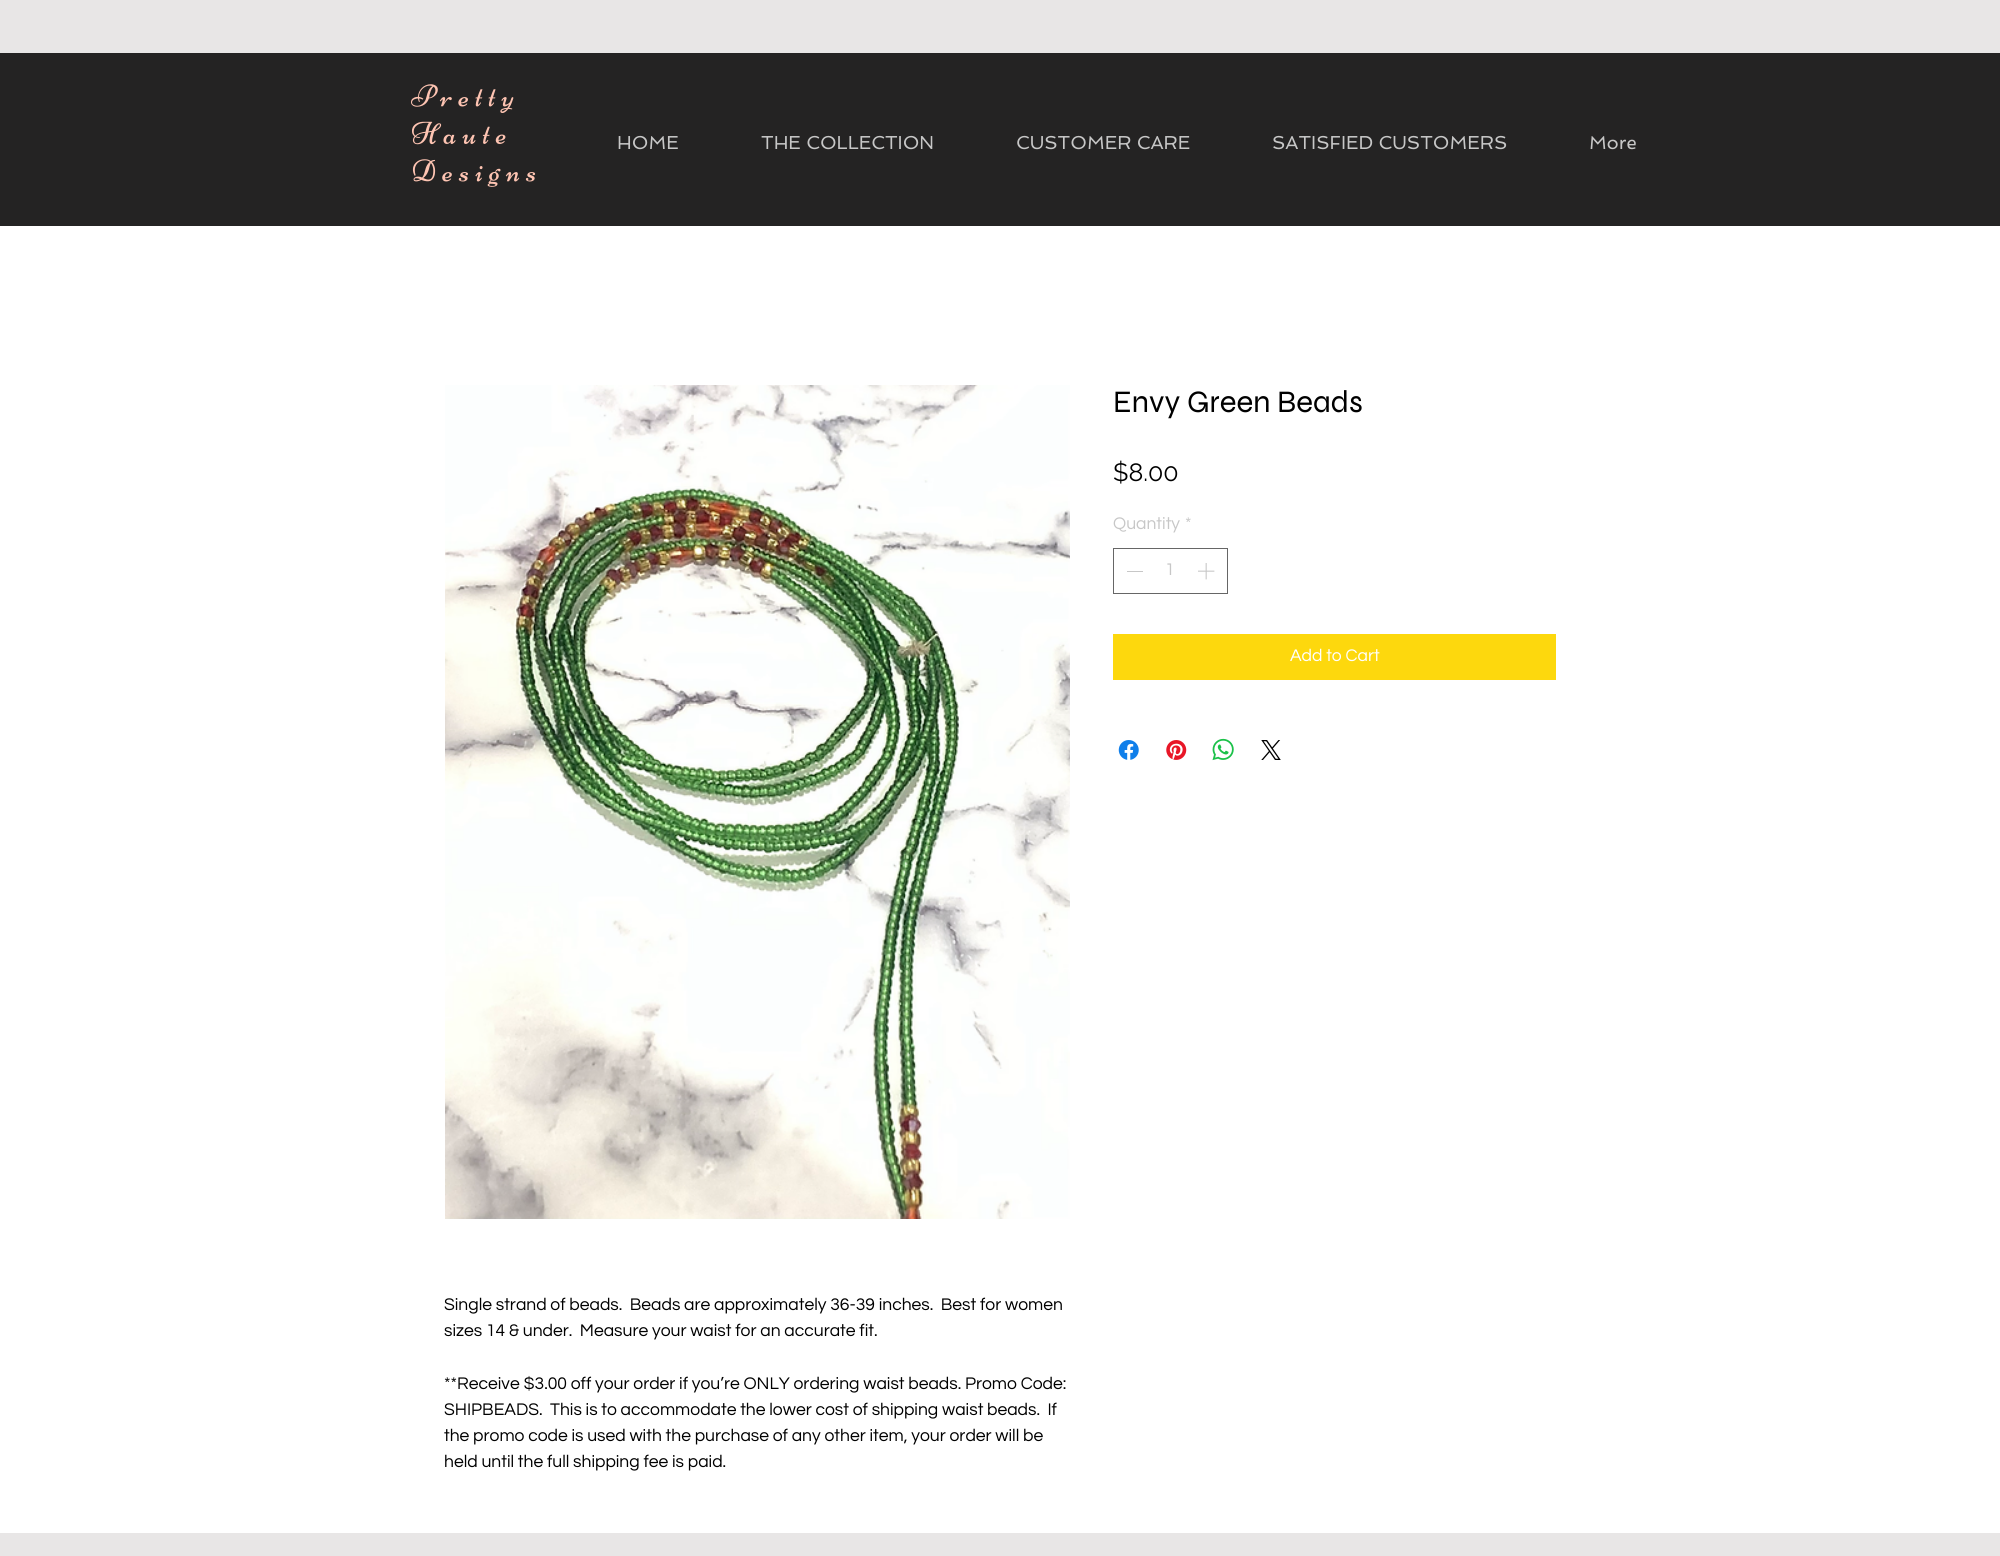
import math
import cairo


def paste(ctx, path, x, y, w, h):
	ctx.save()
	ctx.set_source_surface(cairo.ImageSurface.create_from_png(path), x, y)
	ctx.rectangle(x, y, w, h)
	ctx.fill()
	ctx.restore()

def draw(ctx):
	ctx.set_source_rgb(1, 1, 1)
	ctx.paint()
	ctx.set_source_rgb(0.91, 0.902, 0.902)
	ctx.rectangle(0, 0, 2000, 53)
	ctx.fill()
	ctx.set_source_rgb(0.141, 0.137, 0.137)
	ctx.rectangle(0, 53, 2000, 173)
	ctx.fill()
	paste(ctx, 'media/1.png', 411, 84, 103, 29)
	paste(ctx, 'media/2.png', 412, 121, 94, 24)
	paste(ctx, 'media/3.png', 412, 159, 124, 28)
	ctx.select_font_face('Spinnaker')
	ctx.set_font_size(18.75)
	ctx.set_source_rgb(0.78, 0.78, 0.78)
	for x, y, s in [
		(617, 149, 'HOME'),
		(761, 149, 'THE COLLECTION'),
		(1016, 149, 'CUSTOMER CARE'),
		(1272, 149, 'SATISFIED CUSTOMERS'),
		(1589, 149, 'More'),
	]:
		ctx.move_to(x, y)
		ctx.show_text(s)
	ctx.select_font_face('Syne')
	ctx.set_font_size(31.25)
	ctx.set_source_rgb(0, 0, 0)
	ctx.move_to(1113, 412)
	ctx.show_text('Envy Green Beads')
	ctx.select_font_face('Raleway')
	ctx.set_font_size(25)
	ctx.move_to(1113, 481)
	ctx.show_text('$8.00')
	ctx.select_font_face('Questrial')
	ctx.set_font_size(17.5)
	ctx.set_source_rgb(0.78, 0.78, 0.78)
	ctx.move_to(1113, 529)
	ctx.show_text('Quantity')
	ctx.move_to(1185, 529)
	ctx.show_text('*')
	ctx.rectangle(1113.5, 548.5, 114, 45)
	ctx.set_source_rgb(0.4, 0.4, 0.4)
	ctx.set_line_width(1)
	ctx.stroke()
	ctx.set_source_rgb(0.78, 0.78, 0.78)
	ctx.rectangle(1127, 571, 16, 1)
	ctx.fill()
	ctx.move_to(1165, 575)
	ctx.show_text('1')
	paste(ctx, 'media/4.png', 1198, 563, 17, 17)
	ctx.set_source_rgb(0.992, 0.847, 0.051)
	ctx.rectangle(1113, 634, 443, 46)
	ctx.fill()
	ctx.set_source_rgb(1, 1, 1)
	ctx.move_to(1290, 661)
	ctx.show_text('Add to Cart')
	paste(ctx, 'media/5.png', 1118, 740, 21, 20)
	paste(ctx, 'media/6.png', 1166, 740, 21, 20)
	paste(ctx, 'media/7.png', 1212, 738, 22, 23)
	paste(ctx, 'media/8.png', 1261, 740, 20, 20)
	paste(ctx, 'media/9.png', 445, 385, 625, 834)
	ctx.set_source_rgb(0, 0, 0)
	for x, y, s in [
		(444, 1310, 'Single strand of beads.  Beads are approximately 36-39 inches.  Best for women'),
		(444, 1336, 'sizes 14 & under.  Measure your waist for an accurate fit.'),
		(444, 1389, '**Receive $3.00 off your order if you’re ONLY ordering waist beads. Promo Code:'),
		(444, 1415, 'SHIPBEADS.  This is to accommodate the lower cost of shipping waist beads.  If'),
		(444, 1441, 'the promo code is used with the purchase of any other item, your order will be'),
		(444, 1467, 'held until the full shipping fee is paid.'),
	]:
		ctx.move_to(x, y)
		ctx.show_text(s)
	ctx.set_source_rgb(0.91, 0.902, 0.902)
	ctx.rectangle(0, 1533, 2000, 23)
	ctx.fill()


surface = cairo.ImageSurface(cairo.FORMAT_RGB24, 2000, 1556)
ctx = cairo.Context(surface)
options = cairo.FontOptions()
options.set_hint_metrics(cairo.HINT_METRICS_OFF)
options.set_hint_style(cairo.HINT_STYLE_NONE)
ctx.set_font_options(options)
ctx.set_miter_limit(4)
draw(ctx)
surface.write_to_png('image.png')
